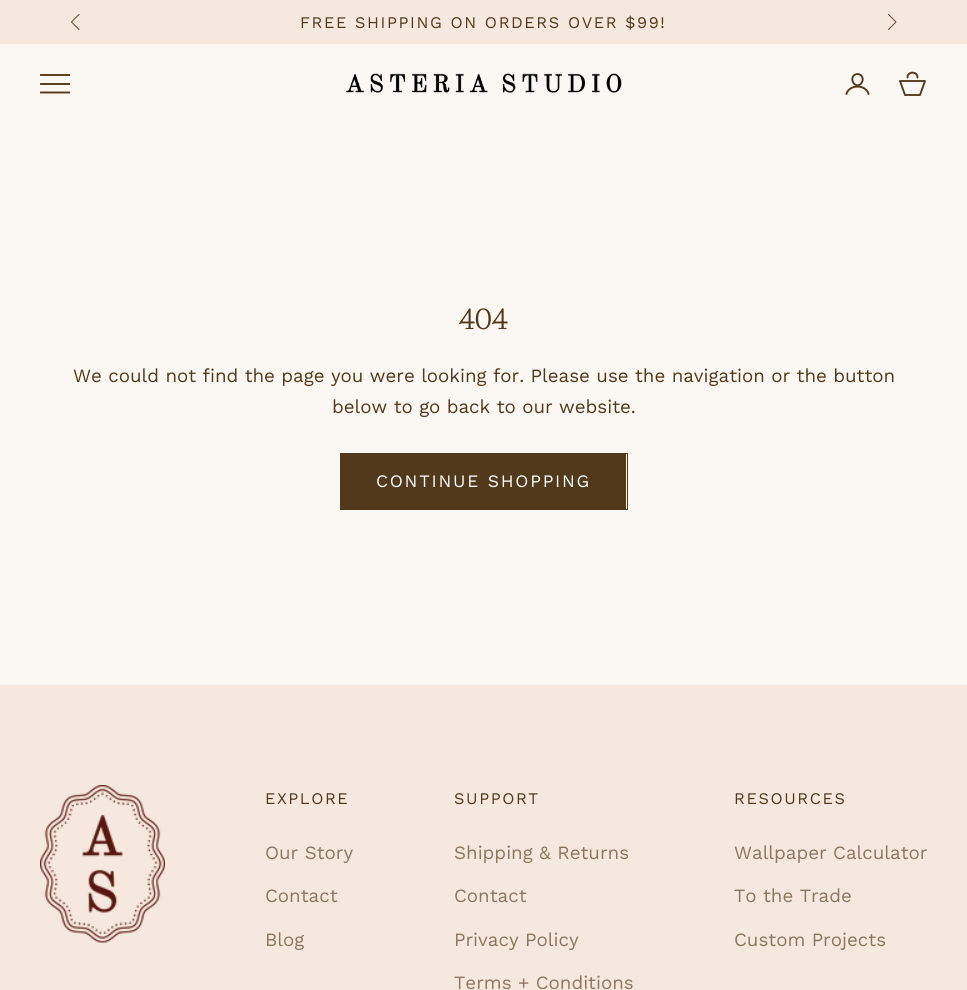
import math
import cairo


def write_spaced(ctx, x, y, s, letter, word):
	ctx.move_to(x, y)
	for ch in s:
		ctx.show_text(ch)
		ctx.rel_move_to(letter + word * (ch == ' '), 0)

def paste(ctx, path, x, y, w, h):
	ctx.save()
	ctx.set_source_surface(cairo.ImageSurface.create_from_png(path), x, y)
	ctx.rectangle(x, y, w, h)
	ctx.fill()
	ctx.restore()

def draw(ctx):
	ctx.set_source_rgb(0.984, 0.969, 0.957)
	ctx.paint()
	ctx.set_source_rgb(0.961, 0.91, 0.867)
	ctx.rectangle(0, 0, 967, 44)
	ctx.fill()
	ctx.new_path()
	ctx.move_to(79, 14.5)
	ctx.line_to(71.5, 22)
	ctx.line_to(79, 29.5)
	ctx.set_source_rgb(0.325, 0.224, 0.106)
	ctx.set_line_width(0.9)
	ctx.set_line_cap(cairo.LINE_CAP_SQUARE)
	ctx.stroke()
	ctx.select_font_face('Work Sans')
	ctx.set_font_size(16.25)
	write_spaced(ctx, 300, 28, 'FREE SHIPPING ON ORDERS OVER $99!', 1.6, 0)
	ctx.new_path()
	ctx.move_to(888.5, 29.5)
	ctx.line_to(896, 22)
	ctx.line_to(888.5, 14.5)
	ctx.stroke()
	ctx.new_path()
	ctx.move_to(41, 92.5)
	ctx.line_to(69, 92.5)
	ctx.move_to(41, 84)
	ctx.line_to(69, 84)
	ctx.move_to(41, 75)
	ctx.line_to(69, 75)
	ctx.set_line_width(1.9)
	ctx.stroke()
	paste(ctx, 'media/1.png', 346, 73, 276, 20)
	paste(ctx, 'media/2.png', 845, 73, 25, 22)
	ctx.new_path()
	ctx.move_to(900, 81)
	ctx.line_to(925, 81)
	ctx.line_to(920, 95)
	ctx.line_to(905, 95)
	ctx.close_path()
	ctx.move_to(917.5, 77.5)
	ctx.curve_to(917.5, 71, 907.5, 71, 907.5, 77.5)
	ctx.set_line_cap(cairo.LINE_CAP_ROUND)
	ctx.set_line_join(cairo.LINE_JOIN_ROUND)
	ctx.stroke()
	ctx.select_font_face('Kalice')
	ctx.set_font_size(27)
	ctx.move_to(459, 329)
	ctx.show_text('404')
	ctx.select_font_face('Work Sans')
	ctx.set_font_size(18.75)
	ctx.move_to(73, 382)
	ctx.show_text('We could not find the page you were looking for. Please use the navigation or the button')
	ctx.move_to(332, 413)
	ctx.show_text('below to go back to our website.')
	ctx.rectangle(341, 454, 285, 55)
	ctx.fill()
	ctx.rectangle(340.5, 453.5, 287, 56)
	ctx.set_line_width(1)
	ctx.set_line_cap(cairo.LINE_CAP_BUTT)
	ctx.set_line_join(cairo.LINE_JOIN_MITER)
	ctx.stroke()
	ctx.set_font_size(17.5)
	ctx.set_source_rgb(1, 1, 1)
	write_spaced(ctx, 376, 487, 'CONTINUE SHOPPING', 1.75, 0)
	ctx.set_source_rgb(0.961, 0.91, 0.867)
	ctx.rectangle(0, 685, 967, 305)
	ctx.fill()
	paste(ctx, 'media/3.png', 40, 785, 125, 158)
	ctx.set_font_size(16.25)
	ctx.set_source_rgb(0.325, 0.224, 0.106)
	write_spaced(ctx, 265, 804, 'EXPLORE', 1.6, 0)
	ctx.set_font_size(18.75)
	ctx.set_source_rgb(0.549, 0.463, 0.373)
	for x, y, s in [
		(265, 859, 'Our Story'),
		(265, 902, 'Contact'),
		(265, 946, 'Blog'),
	]:
		ctx.move_to(x, y)
		ctx.show_text(s)
	ctx.set_font_size(16.25)
	ctx.set_source_rgb(0.325, 0.224, 0.106)
	write_spaced(ctx, 454, 804, 'SUPPORT', 1.6, 0)
	ctx.set_font_size(18.75)
	ctx.set_source_rgb(0.549, 0.463, 0.373)
	for x, y, s in [
		(454, 859, 'Shipping & Returns'),
		(454, 902, 'Contact'),
		(454, 946, 'Privacy Policy'),
		(454, 989, 'Terms + Conditions'),
	]:
		ctx.move_to(x, y)
		ctx.show_text(s)
	ctx.set_font_size(16.25)
	ctx.set_source_rgb(0.325, 0.224, 0.106)
	write_spaced(ctx, 734, 804, 'RESOURCES', 1.6, 0)
	ctx.set_font_size(18.75)
	ctx.set_source_rgb(0.549, 0.463, 0.373)
	for x, y, s in [
		(734, 859, 'Wallpaper Calculator'),
		(734, 902, 'To the Trade'),
		(734, 946, 'Custom Projects'),
	]:
		ctx.move_to(x, y)
		ctx.show_text(s)


surface = cairo.ImageSurface(cairo.FORMAT_RGB24, 967, 990)
ctx = cairo.Context(surface)
options = cairo.FontOptions()
options.set_hint_metrics(cairo.HINT_METRICS_OFF)
options.set_hint_style(cairo.HINT_STYLE_NONE)
ctx.set_font_options(options)
ctx.set_miter_limit(4)
draw(ctx)
surface.write_to_png('image.png')
